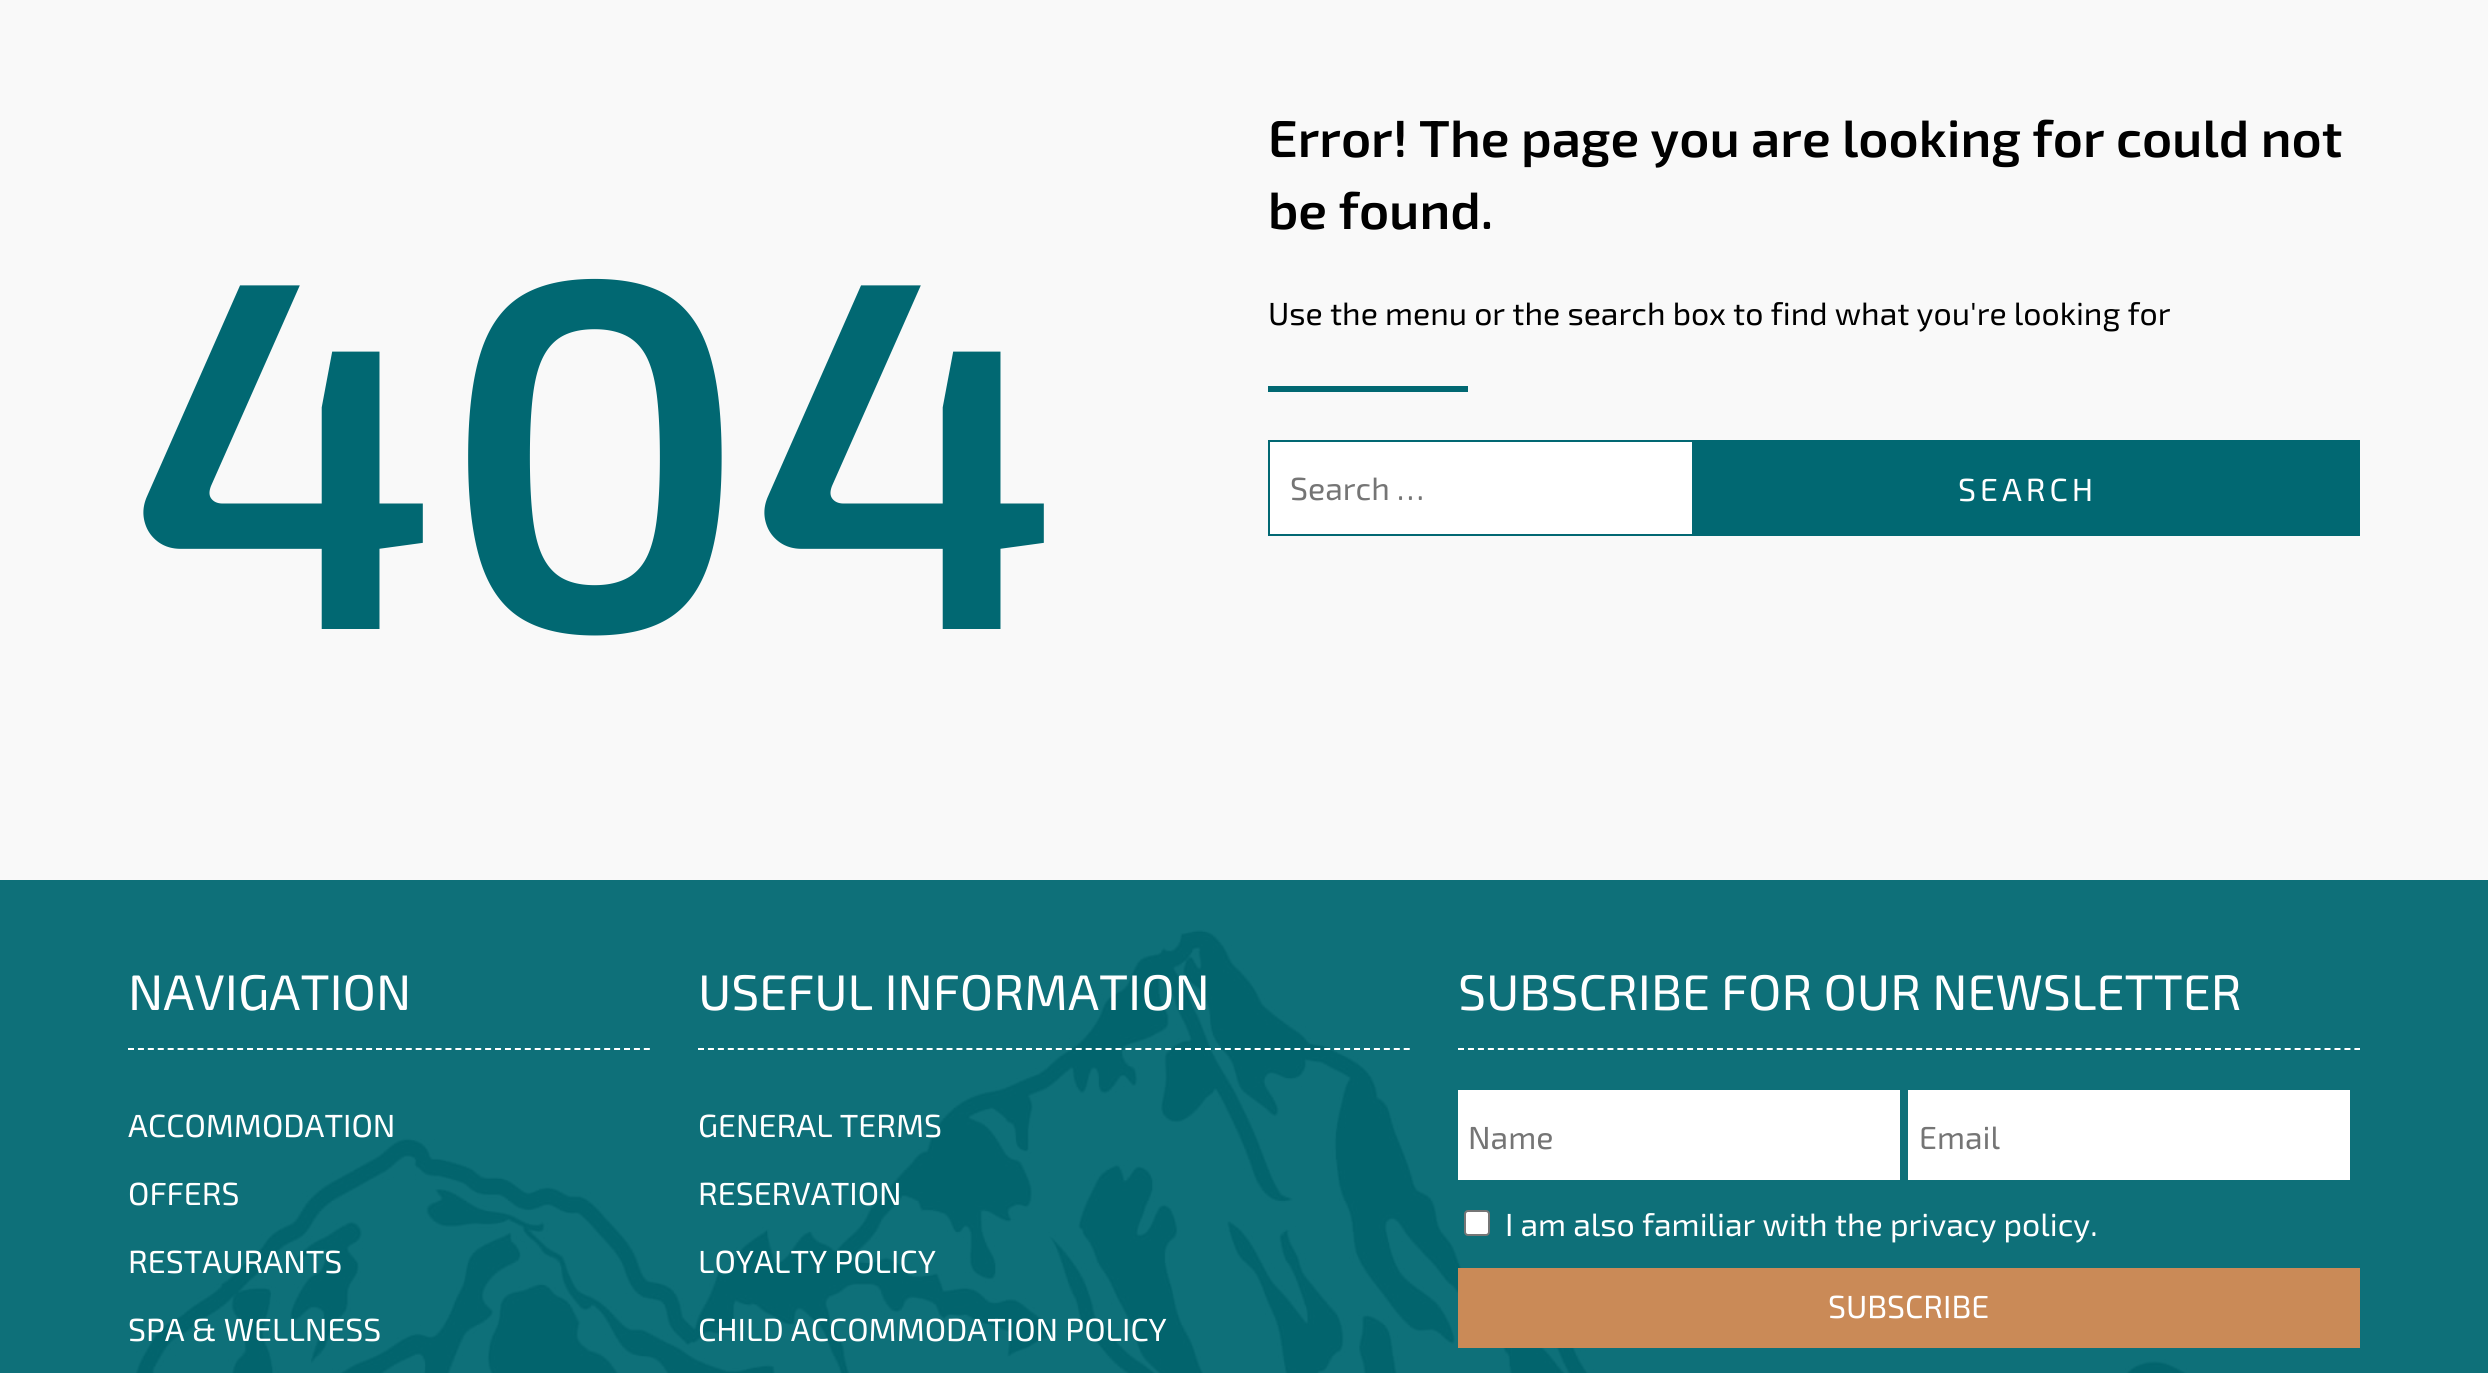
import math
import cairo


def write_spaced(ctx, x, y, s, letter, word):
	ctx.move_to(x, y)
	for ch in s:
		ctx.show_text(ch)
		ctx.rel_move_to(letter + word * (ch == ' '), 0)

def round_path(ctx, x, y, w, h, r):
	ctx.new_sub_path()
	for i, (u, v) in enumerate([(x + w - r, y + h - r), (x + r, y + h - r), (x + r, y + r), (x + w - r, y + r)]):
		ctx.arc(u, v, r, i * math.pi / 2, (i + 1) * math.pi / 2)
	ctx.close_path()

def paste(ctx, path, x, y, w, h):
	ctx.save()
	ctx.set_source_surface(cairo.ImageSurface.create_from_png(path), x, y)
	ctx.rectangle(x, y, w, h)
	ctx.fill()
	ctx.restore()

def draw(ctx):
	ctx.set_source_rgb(0.973, 0.973, 0.973)
	ctx.paint()
	ctx.select_font_face('Exo 2 SemiBold')
	ctx.set_font_size(498)
	ctx.set_source_rgb(0.004, 0.408, 0.447)
	ctx.move_to(128, 629)
	ctx.show_text('404')
	ctx.set_font_size(52)
	ctx.set_source_rgb(0, 0, 0)
	ctx.move_to(1268, 157)
	ctx.show_text('Error! The page you are looking for could not')
	ctx.move_to(1268, 229)
	ctx.show_text('be found.')
	ctx.select_font_face('Exo 2')
	ctx.set_font_size(32)
	ctx.move_to(1268, 325)
	ctx.show_text('Use the menu or the search box to find what you\'re looking for')
	ctx.set_source_rgb(0.004, 0.408, 0.447)
	ctx.rectangle(1268, 386, 200, 6)
	ctx.fill()
	ctx.set_source_rgb(1, 1, 1)
	ctx.rectangle(1269, 441, 424, 94)
	ctx.fill_preserve()
	ctx.set_source_rgb(0.008, 0.408, 0.451)
	ctx.stroke()
	ctx.set_source_rgb(0.459, 0.459, 0.459)
	ctx.move_to(1290, 500)
	ctx.show_text('Search …')
	ctx.set_source_rgb(0.004, 0.408, 0.447)
	ctx.rectangle(1694, 440, 666, 96)
	ctx.fill()
	ctx.set_source_rgb(1, 1, 1)
	write_spaced(ctx, 1958, 501, 'SEARCH', 4, 0)
	ctx.set_source_rgb(0.004, 0.408, 0.447)
	ctx.rectangle(0, 880, 2488, 493)
	ctx.fill()
	paste(ctx, 'media/1.png', 0, 880, 2488, 493)
	ctx.new_path()
	ctx.move_to(128, 1049)
	ctx.line_to(650, 1049)
	ctx.set_source_rgb(1, 1, 1)
	ctx.set_dash([6, 3.92])
	ctx.stroke()
	ctx.set_font_size(50)
	ctx.move_to(128, 1010)
	ctx.show_text('NAVIGATION')
	ctx.set_font_size(32)
	for x, y, s in [
		(128, 1137, 'ACCOMMODATION'),
		(128, 1205, 'OFFERS'),
		(128, 1273, 'RESTAURANTS'),
		(128, 1341, 'SPA & WELLNESS'),
	]:
		ctx.move_to(x, y)
		ctx.show_text(s)
	ctx.new_path()
	ctx.move_to(698, 1049)
	ctx.line_to(1410, 1049)
	ctx.set_dash([6, 3.94])
	ctx.stroke()
	ctx.set_font_size(50)
	ctx.move_to(698, 1010)
	ctx.show_text('USEFUL INFORMATION')
	ctx.set_font_size(32)
	for x, y, s in [
		(698, 1137, 'GENERAL TERMS'),
		(698, 1205, 'RESERVATION'),
		(698, 1273, 'LOYALTY POLICY'),
		(698, 1341, 'CHILD ACCOMMODATION POLICY'),
	]:
		ctx.move_to(x, y)
		ctx.show_text(s)
	ctx.new_path()
	ctx.move_to(1458, 1049)
	ctx.line_to(2360, 1049)
	ctx.set_dash([6, 3.96])
	ctx.stroke()
	ctx.set_font_size(50)
	ctx.move_to(1458, 1010)
	ctx.show_text('SUBSCRIBE FOR OUR NEWSLETTER')
	ctx.rectangle(1458, 1090, 442, 90)
	ctx.fill()
	ctx.set_font_size(32)
	ctx.set_source_rgb(0.459, 0.459, 0.459)
	ctx.move_to(1468, 1149)
	ctx.show_text('Name')
	ctx.set_source_rgb(1, 1, 1)
	ctx.rectangle(1908, 1090, 442, 90)
	ctx.fill()
	ctx.set_source_rgb(0.459, 0.459, 0.459)
	ctx.move_to(1919, 1149)
	ctx.show_text('Email')
	ctx.set_source_rgb(1, 1, 1)
	round_path(ctx, 1465, 1211, 24, 24, 3)
	ctx.fill_preserve()
	ctx.set_source_rgb(0.463, 0.463, 0.463)
	ctx.set_dash([])
	ctx.stroke()
	ctx.set_source_rgb(1, 1, 1)
	ctx.move_to(1505, 1236)
	ctx.show_text('I am also familiar with the privacy policy.')
	ctx.set_source_rgb(0.792, 0.541, 0.341)
	ctx.rectangle(1458, 1268, 902, 80)
	ctx.fill()
	ctx.set_source_rgb(1, 1, 1)
	ctx.move_to(1828, 1318)
	ctx.show_text('SUBSCRIBE')


surface = cairo.ImageSurface(cairo.FORMAT_RGB24, 2488, 1373)
ctx = cairo.Context(surface)
options = cairo.FontOptions()
options.set_hint_metrics(cairo.HINT_METRICS_OFF)
options.set_hint_style(cairo.HINT_STYLE_NONE)
ctx.set_font_options(options)
ctx.set_miter_limit(4)
draw(ctx)
surface.write_to_png('image.png')
